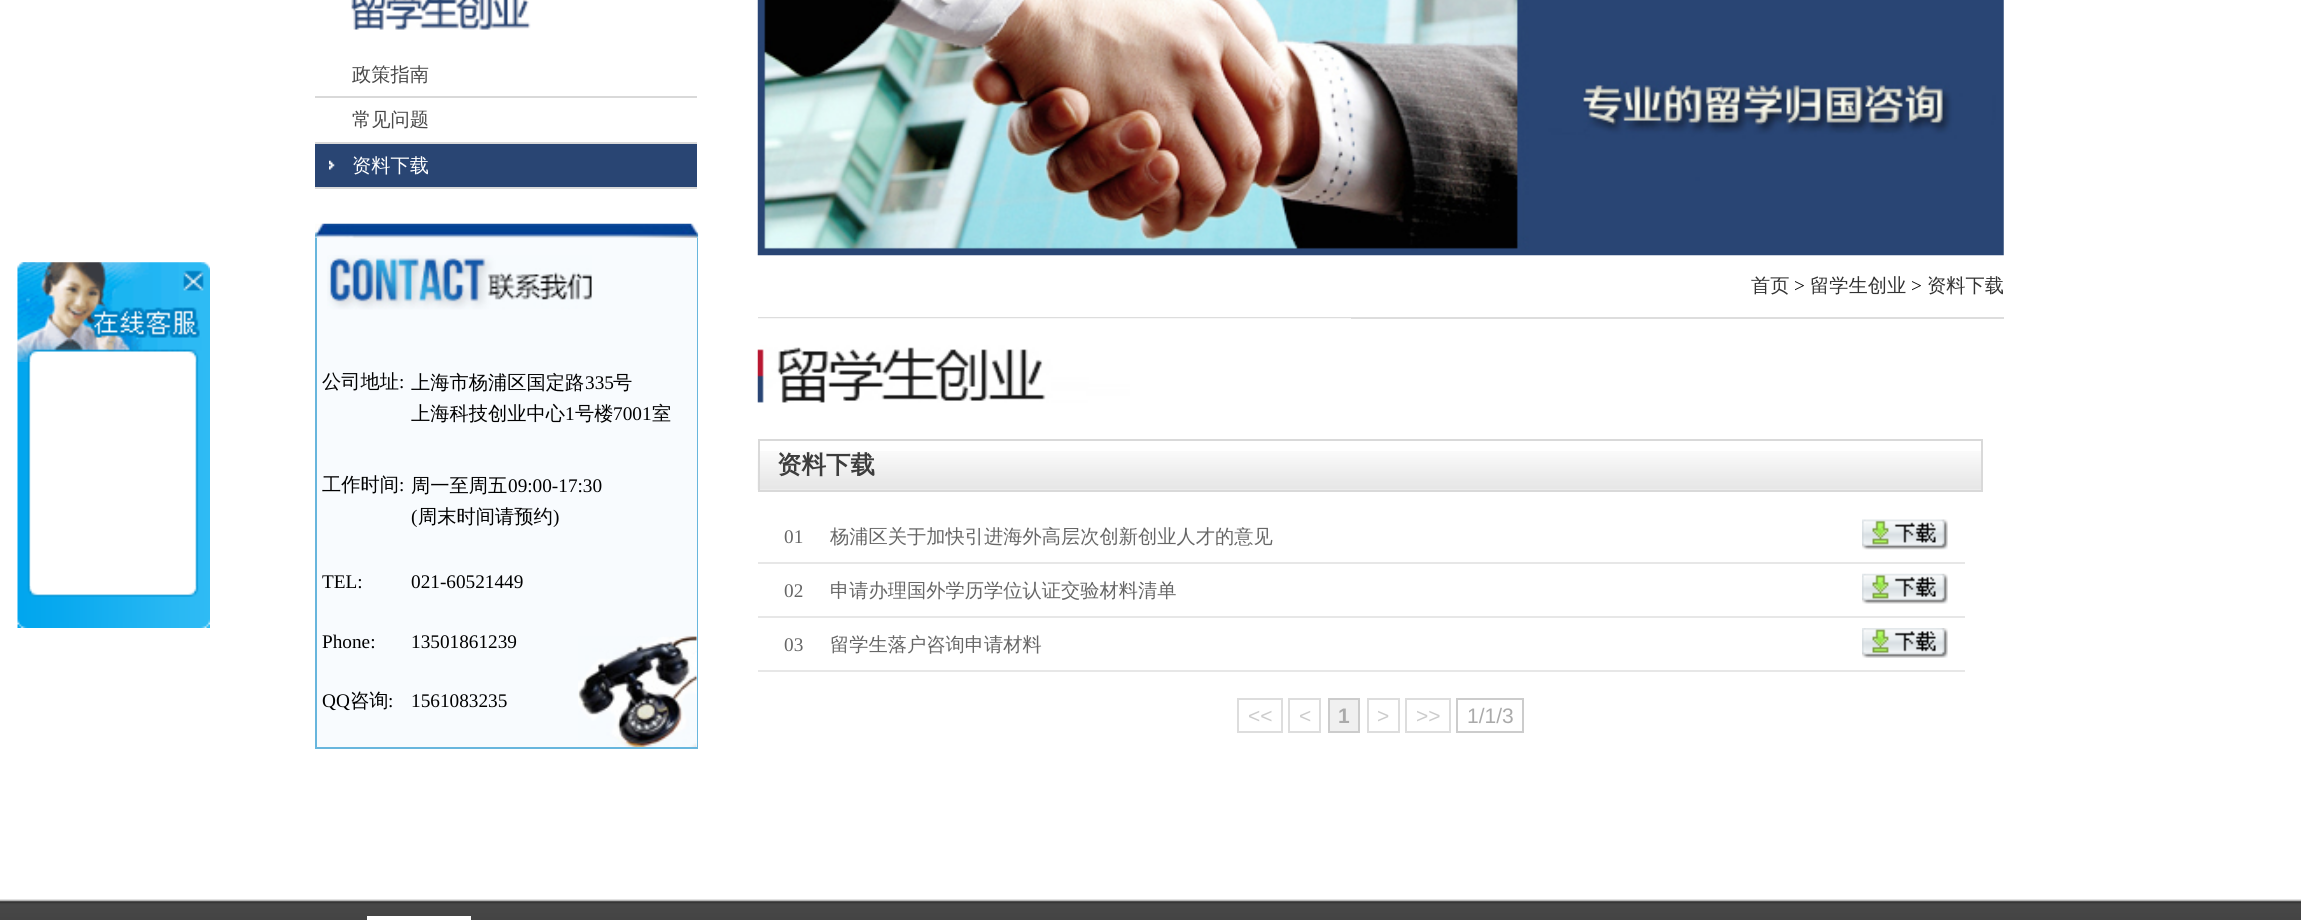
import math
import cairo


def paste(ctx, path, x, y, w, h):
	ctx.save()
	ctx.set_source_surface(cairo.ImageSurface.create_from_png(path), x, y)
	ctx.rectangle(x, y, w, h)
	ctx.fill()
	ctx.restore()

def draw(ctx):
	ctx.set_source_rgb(1, 1, 1)
	ctx.paint()
	paste(ctx, 'media/1.png', 17, 262, 18, 100)
	paste(ctx, 'media/2.png', 17, 262, 193, 100)
	paste(ctx, 'media/3.png', 17, 362, 193, 224)
	paste(ctx, 'media/4.png', 17, 586, 193, 42)
	paste(ctx, 'media/5.png', 351, 0, 180, 30)
	ctx.set_source_rgb(0.851, 0.851, 0.851)
	ctx.rectangle(315, 96, 382, 2)
	ctx.fill()
	ctx.select_font_face('WenQuanYi Zen Hei Medium')
	ctx.set_font_size(19.25)
	ctx.set_source_rgb(0.278, 0.278, 0.278)
	ctx.move_to(352, 81)
	ctx.show_text('政策指南')
	ctx.set_source_rgb(0.851, 0.851, 0.851)
	ctx.rectangle(315, 142, 382, 2)
	ctx.fill()
	ctx.set_source_rgb(0.278, 0.278, 0.278)
	ctx.move_to(352, 126)
	ctx.show_text('常见问题')
	ctx.set_source_rgb(0.161, 0.271, 0.451)
	ctx.rectangle(315, 144, 382, 43)
	ctx.fill()
	paste(ctx, 'media/6.png', 329, 160, 6, 10)
	ctx.set_source_rgb(0.851, 0.851, 0.851)
	ctx.rectangle(315, 187, 382, 2)
	ctx.fill()
	ctx.set_source_rgb(1, 1, 1)
	ctx.move_to(352, 172)
	ctx.show_text('资料下载')
	paste(ctx, 'media/7.png', 315, 223, 384, 15)
	ctx.set_source_rgb(0.969, 0.984, 0.996)
	ctx.rectangle(317, 238, 380, 509)
	ctx.fill()
	paste(ctx, 'media/8.png', 578, 636, 119, 111)
	ctx.set_source_rgb(0.408, 0.714, 0.867)
	ctx.rectangle(697, 238, 1, 511)
	ctx.rectangle(315, 747, 383, 2)
	ctx.rectangle(315, 238, 2, 511)
	ctx.fill()
	paste(ctx, 'media/9.png', 327, 255, 265, 55)
	ctx.set_source_rgb(0, 0, 0)
	ctx.move_to(322, 388)
	ctx.show_text('公司地址')
	ctx.select_font_face('Liberation Serif')
	ctx.move_to(399, 388)
	ctx.show_text(':')
	ctx.select_font_face('WenQuanYi Zen Hei Medium')
	ctx.move_to(411, 389)
	ctx.show_text('上海市杨浦区国定路')
	ctx.select_font_face('Liberation Serif')
	ctx.move_to(585, 389)
	ctx.show_text('335')
	ctx.select_font_face('WenQuanYi Zen Hei Medium')
	ctx.move_to(613, 389)
	ctx.show_text('号')
	ctx.move_to(411, 420)
	ctx.show_text('上海科技创业中心')
	ctx.select_font_face('Liberation Serif')
	ctx.move_to(565, 420)
	ctx.show_text('1')
	ctx.select_font_face('WenQuanYi Zen Hei Medium')
	ctx.move_to(575, 420)
	ctx.show_text('号楼')
	ctx.select_font_face('Liberation Serif')
	ctx.move_to(613, 420)
	ctx.show_text('7001')
	ctx.select_font_face('WenQuanYi Zen Hei Medium')
	ctx.move_to(652, 420)
	ctx.show_text('室')
	ctx.move_to(322, 491)
	ctx.show_text('工作时间')
	ctx.select_font_face('Liberation Serif')
	ctx.move_to(399, 491)
	ctx.show_text(':')
	ctx.select_font_face('WenQuanYi Zen Hei Medium')
	ctx.move_to(411, 492)
	ctx.show_text('周一至周五')
	ctx.select_font_face('Liberation Serif')
	ctx.move_to(508, 492)
	ctx.show_text('09:00-17:30')
	ctx.move_to(411, 523)
	ctx.show_text('(')
	ctx.select_font_face('WenQuanYi Zen Hei Medium')
	ctx.move_to(418, 523)
	ctx.show_text('周末时间请预约')
	ctx.select_font_face('Liberation Serif')
	for x, y, s in [
		(553, 523, ')'),
		(322, 588, 'TEL:'),
		(411, 588, '021-60521449'),
		(322, 648, 'Phone:'),
		(411, 648, '13501861239'),
		(322, 707, 'QQ'),
	]:
		ctx.move_to(x, y)
		ctx.show_text(s)
	ctx.select_font_face('WenQuanYi Zen Hei Medium')
	ctx.move_to(350, 707)
	ctx.show_text('咨询')
	ctx.select_font_face('Liberation Serif')
	ctx.move_to(388, 707)
	ctx.show_text(':')
	ctx.move_to(411, 707)
	ctx.show_text('1561083235')
	paste(ctx, 'media/10.png', 757, 0, 1247, 256)
	ctx.set_source_rgb(0.867, 0.867, 0.867)
	ctx.rectangle(758, 317, 1246, 2)
	ctx.fill()
	ctx.select_font_face('WenQuanYi Zen Hei Medium')
	ctx.set_source_rgb(0.2, 0.2, 0.2)
	ctx.move_to(1751, 292)
	ctx.show_text('首页')
	ctx.select_font_face('Liberation Serif')
	ctx.set_source_rgb(0, 0, 0)
	ctx.move_to(1794, 292)
	ctx.show_text('>')
	ctx.select_font_face('WenQuanYi Zen Hei Medium')
	ctx.set_source_rgb(0.2, 0.2, 0.2)
	ctx.move_to(1810, 292)
	ctx.show_text('留学生创业')
	ctx.select_font_face('Liberation Serif')
	ctx.set_source_rgb(0, 0, 0)
	ctx.move_to(1911, 292)
	ctx.show_text('>')
	ctx.select_font_face('WenQuanYi Zen Hei Medium')
	ctx.set_source_rgb(0.2, 0.2, 0.2)
	ctx.move_to(1927, 292)
	ctx.show_text('资料下载')
	paste(ctx, 'media/11.png', 757, 318, 594, 85)
	paste(ctx, 'media/12.png', 757, 451, 1224, 39)
	ctx.rectangle(759, 440, 1223, 51)
	ctx.set_source_rgb(0.851, 0.851, 0.851)
	ctx.stroke()
	ctx.select_font_face('WenQuanYi Zen Hei', cairo.FONT_SLANT_NORMAL, cairo.FONT_WEIGHT_BOLD)
	ctx.set_font_size(24.5)
	ctx.set_source_rgb(0.239, 0.239, 0.239)
	ctx.move_to(777, 473)
	ctx.show_text('资料下载')
	ctx.set_source_rgb(0.906, 0.906, 0.906)
	ctx.rectangle(758, 562, 1207, 2)
	ctx.fill()
	ctx.select_font_face('Liberation Serif')
	ctx.set_font_size(19.25)
	ctx.set_source_rgb(0.4, 0.4, 0.4)
	ctx.move_to(784, 543)
	ctx.show_text('01')
	ctx.select_font_face('WenQuanYi Zen Hei Medium')
	ctx.move_to(830, 543)
	ctx.show_text('杨浦区关于加快引进海外高层次创新创业人才的意见')
	paste(ctx, 'media/13.png', 1862, 519, 86, 31)
	ctx.set_source_rgb(0.906, 0.906, 0.906)
	ctx.rectangle(758, 616, 1207, 2)
	ctx.fill()
	ctx.select_font_face('Liberation Serif')
	ctx.set_source_rgb(0.4, 0.4, 0.4)
	ctx.move_to(784, 597)
	ctx.show_text('02')
	ctx.select_font_face('WenQuanYi Zen Hei Medium')
	ctx.move_to(830, 597)
	ctx.show_text('申请办理国外学历学位认证交验材料清单')
	paste(ctx, 'media/14.png', 1862, 573, 86, 31)
	ctx.set_source_rgb(0.906, 0.906, 0.906)
	ctx.rectangle(758, 670, 1207, 2)
	ctx.fill()
	ctx.select_font_face('Liberation Serif')
	ctx.set_source_rgb(0.4, 0.4, 0.4)
	ctx.move_to(784, 651)
	ctx.show_text('03')
	ctx.select_font_face('WenQuanYi Zen Hei Medium')
	ctx.move_to(830, 651)
	ctx.show_text('留学生落户咨询申请材料')
	paste(ctx, 'media/15.png', 1862, 628, 86, 30)
	ctx.rectangle(1238, 699, 44, 33)
	ctx.set_source_rgb(0.867, 0.867, 0.867)
	ctx.stroke()
	ctx.select_font_face('Liberation Sans')
	ctx.set_font_size(21)
	ctx.set_source_rgb(0.8, 0.8, 0.8)
	ctx.move_to(1248, 723)
	ctx.show_text('<<')
	ctx.rectangle(1289, 699, 31, 33)
	ctx.set_source_rgb(0.867, 0.867, 0.867)
	ctx.stroke()
	ctx.set_source_rgb(0.8, 0.8, 0.8)
	ctx.move_to(1299, 723)
	ctx.show_text('<')
	ctx.set_source_rgb(0.941, 0.941, 0.941)
	ctx.rectangle(1329, 699, 30, 33)
	ctx.fill_preserve()
	ctx.set_source_rgb(0.8, 0.8, 0.8)
	ctx.stroke()
	ctx.select_font_face('Liberation Sans', cairo.FONT_SLANT_NORMAL, cairo.FONT_WEIGHT_BOLD)
	ctx.set_source_rgb(0.667, 0.667, 0.667)
	ctx.move_to(1338, 723)
	ctx.show_text('1')
	ctx.rectangle(1368, 699, 31, 33)
	ctx.set_source_rgb(0.867, 0.867, 0.867)
	ctx.stroke()
	ctx.select_font_face('Liberation Sans')
	ctx.set_source_rgb(0.8, 0.8, 0.8)
	ctx.move_to(1377, 723)
	ctx.show_text('>')
	ctx.rectangle(1406, 699, 44, 33)
	ctx.set_source_rgb(0.867, 0.867, 0.867)
	ctx.stroke()
	ctx.set_source_rgb(0.8, 0.8, 0.8)
	ctx.move_to(1416, 723)
	ctx.show_text('>>')
	ctx.rectangle(1457, 699, 66, 33)
	ctx.stroke()
	ctx.set_source_rgb(0.667, 0.667, 0.667)
	ctx.move_to(1467, 723)
	ctx.show_text('1/1/3')
	paste(ctx, 'media/16.png', 0, 899, 2301, 21)
	ctx.set_source_rgb(1, 1, 1)
	ctx.rectangle(367, 916, 104, 4)
	ctx.fill()


surface = cairo.ImageSurface(cairo.FORMAT_RGB24, 2301, 920)
ctx = cairo.Context(surface)
options = cairo.FontOptions()
options.set_hint_metrics(cairo.HINT_METRICS_OFF)
options.set_hint_style(cairo.HINT_STYLE_NONE)
ctx.set_font_options(options)
ctx.set_miter_limit(4)
draw(ctx)
surface.write_to_png('image.png')
